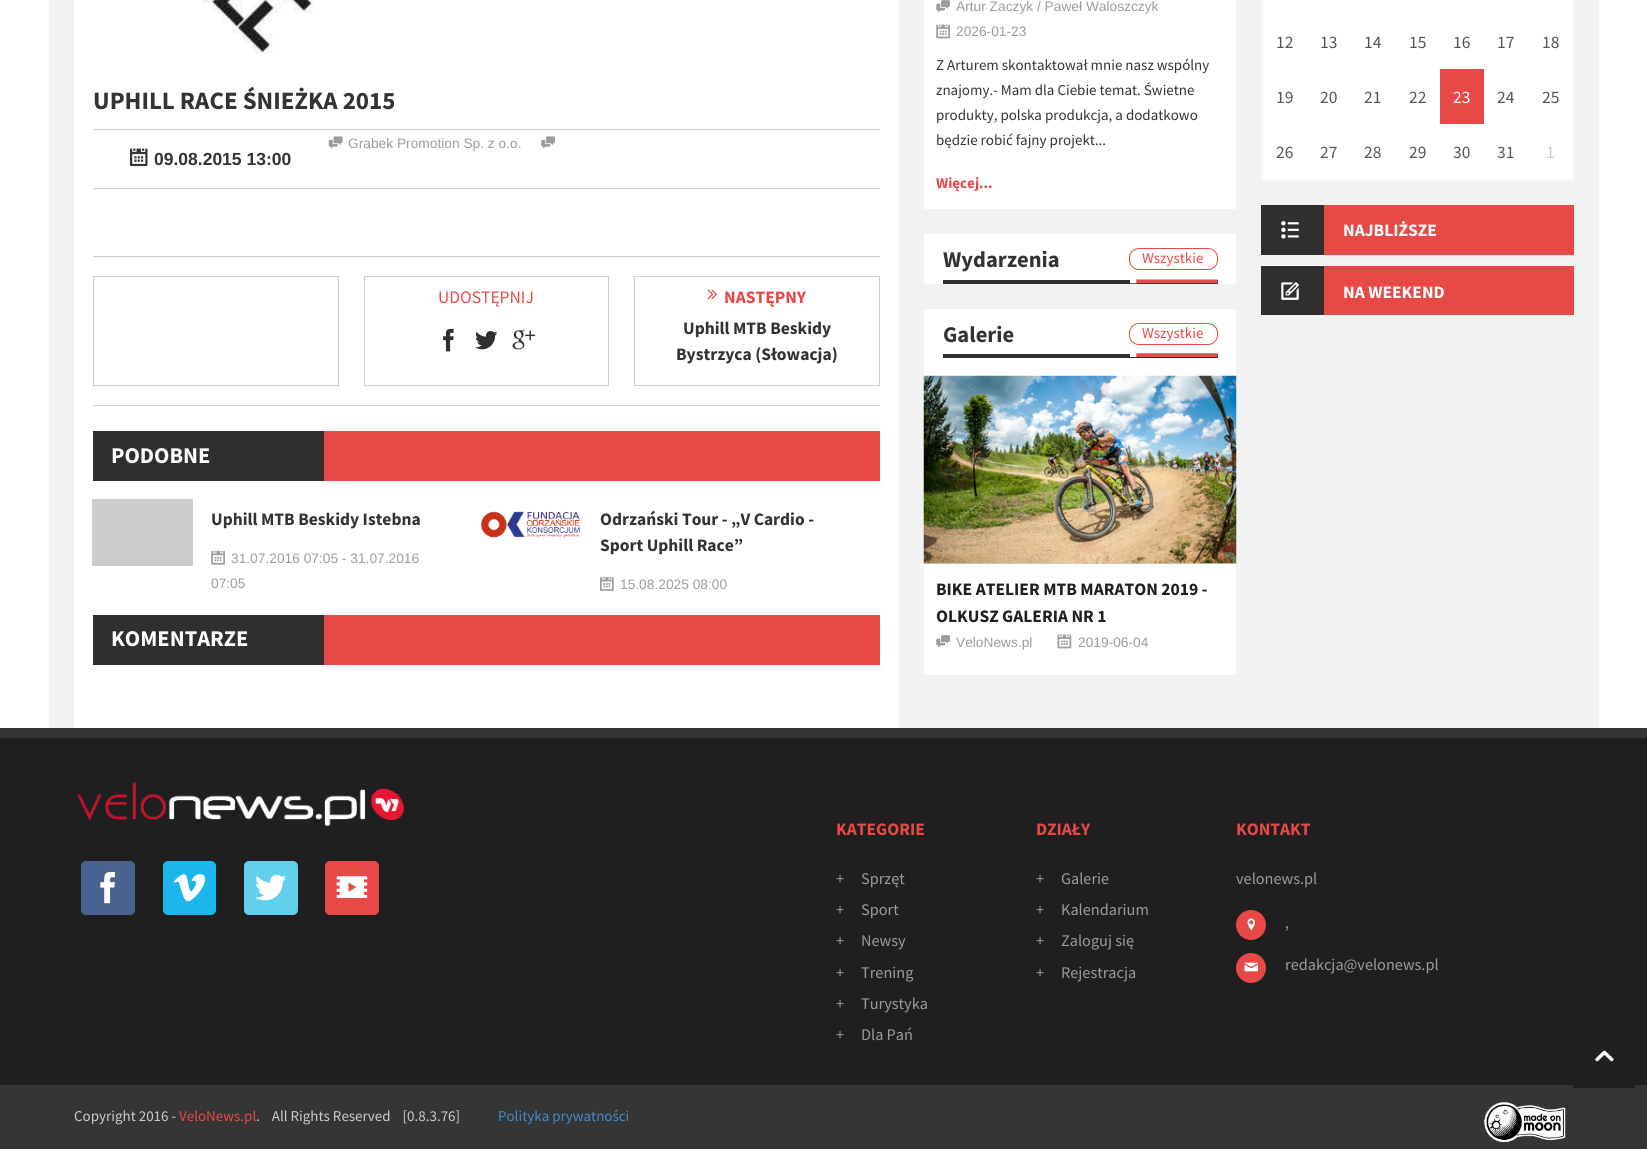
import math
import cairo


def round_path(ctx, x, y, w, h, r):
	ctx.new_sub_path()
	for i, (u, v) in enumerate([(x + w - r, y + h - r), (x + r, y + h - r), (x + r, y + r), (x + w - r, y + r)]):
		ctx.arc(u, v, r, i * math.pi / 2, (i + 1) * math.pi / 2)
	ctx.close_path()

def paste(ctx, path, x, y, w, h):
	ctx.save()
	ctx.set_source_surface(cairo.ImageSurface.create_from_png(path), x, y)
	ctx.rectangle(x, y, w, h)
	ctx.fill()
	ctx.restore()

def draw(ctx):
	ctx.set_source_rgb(1, 1, 1)
	ctx.paint()
	ctx.rectangle(61.5, -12.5, 1525, 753)
	ctx.set_source_rgb(0.949, 0.949, 0.949)
	ctx.set_line_width(25)
	ctx.stroke()
	ctx.rectangle(67.5, -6.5, 1512, 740)
	ctx.set_line_width(13)
	ctx.stroke()
	ctx.rectangle(899, 0, 674, 727)
	ctx.fill()
	ctx.set_source_rgb(1, 1, 1)
	ctx.rectangle(74, 727, 825, 1)
	ctx.fill()
	paste(ctx, 'media/1.png', 202, 0, 111, 54)
	ctx.select_font_face('Source Sans Pro', cairo.FONT_SLANT_NORMAL, cairo.FONT_WEIGHT_BOLD)
	ctx.set_font_size(25)
	ctx.set_source_rgb(0.2, 0.2, 0.2)
	ctx.move_to(93, 109)
	ctx.show_text('UPHILL RACE ŚNIEŻKA 2015')
	ctx.set_source_rgb(0.808, 0.808, 0.808)
	ctx.rectangle(93, 129, 787, 1)
	ctx.fill()
	ctx.rectangle(93, 188, 787, 1)
	ctx.fill()
	paste(ctx, 'media/2.png', 328, 136, 15, 13)
	ctx.select_font_face('Liberation Sans')
	ctx.set_font_size(13.75)
	ctx.set_source_rgb(0.612, 0.612, 0.612)
	ctx.move_to(348, 148)
	ctx.show_text('Grabek Promotion Sp. z o.o.')
	paste(ctx, 'media/3.png', 541, 136, 14, 13)
	paste(ctx, 'media/4.png', 130, 148, 18, 19)
	ctx.select_font_face('Liberation Sans', cairo.FONT_SLANT_NORMAL, cairo.FONT_WEIGHT_BOLD)
	ctx.set_font_size(17.5)
	ctx.set_source_rgb(0.2, 0.2, 0.2)
	ctx.move_to(154, 165)
	ctx.show_text('09.08.2015 13:00')
	ctx.set_source_rgb(0.808, 0.808, 0.808)
	ctx.rectangle(93, 256, 787, 1)
	ctx.fill()
	ctx.rectangle(93, 405, 787, 1)
	ctx.fill()
	ctx.rectangle(93.5, 276.5, 245, 109)
	ctx.set_line_width(1)
	ctx.stroke()
	ctx.rectangle(364.5, 276.5, 244, 109)
	ctx.stroke()
	ctx.select_font_face('Source Sans Pro')
	ctx.set_source_rgb(0.902, 0.286, 0.275)
	ctx.move_to(438, 303)
	ctx.show_text('UDOSTĘPNIJ')
	paste(ctx, 'media/5.png', 443, 328, 11, 24)
	paste(ctx, 'media/6.png', 475, 331, 23, 19)
	paste(ctx, 'media/7.png', 512, 330, 24, 20)
	ctx.rectangle(634.5, 276.5, 245, 109)
	ctx.set_source_rgb(0.808, 0.808, 0.808)
	ctx.stroke()
	paste(ctx, 'media/8.png', 707, 289, 10, 11)
	ctx.select_font_face('Source Sans Pro', cairo.FONT_SLANT_NORMAL, cairo.FONT_WEIGHT_BOLD)
	ctx.set_source_rgb(0.902, 0.286, 0.275)
	ctx.move_to(724, 303)
	ctx.show_text('NASTĘPNY')
	ctx.set_source_rgb(0.2, 0.2, 0.2)
	ctx.move_to(683, 334)
	ctx.show_text('Uphill MTB Beskidy')
	ctx.move_to(676, 360)
	ctx.show_text('Bystrzyca (Słowacja)')
	ctx.set_source_rgb(0.902, 0.286, 0.275)
	ctx.rectangle(324, 431, 556, 50)
	ctx.fill()
	ctx.set_source_rgb(0.184, 0.184, 0.184)
	ctx.rectangle(93, 431, 231, 50)
	ctx.fill()
	ctx.set_font_size(22.5)
	ctx.set_source_rgb(1, 1, 1)
	ctx.move_to(111, 463)
	ctx.show_text('PODOBNE')
	ctx.set_source_rgb(0.8, 0.8, 0.8)
	ctx.rectangle(92, 499, 101, 67)
	ctx.fill()
	ctx.set_font_size(17.5)
	ctx.set_source_rgb(0.2, 0.2, 0.2)
	ctx.move_to(211, 525)
	ctx.show_text('Uphill MTB Beskidy Istebna')
	paste(ctx, 'media/9.png', 211, 550, 14, 15)
	ctx.select_font_face('Liberation Sans')
	ctx.set_font_size(13.75)
	ctx.set_source_rgb(0.612, 0.612, 0.612)
	ctx.move_to(231, 563)
	ctx.show_text('31.07.2016 07:05 - 31.07.2016')
	ctx.move_to(211, 588)
	ctx.show_text('07:05')
	paste(ctx, 'media/10.png', 481, 511, 99, 27)
	ctx.select_font_face('Source Sans Pro', cairo.FONT_SLANT_NORMAL, cairo.FONT_WEIGHT_BOLD)
	ctx.set_font_size(17.5)
	ctx.set_source_rgb(0.2, 0.2, 0.2)
	ctx.move_to(600, 525)
	ctx.show_text('Odrzański Tour - „V Cardio -')
	ctx.move_to(600, 551)
	ctx.show_text('Sport Uphill Race”')
	paste(ctx, 'media/11.png', 600, 577, 14, 14)
	ctx.select_font_face('Liberation Sans')
	ctx.set_font_size(13.75)
	ctx.set_source_rgb(0.612, 0.612, 0.612)
	ctx.move_to(620, 589)
	ctx.show_text('15.08.2025 08:00')
	ctx.set_source_rgb(0.902, 0.286, 0.275)
	ctx.rectangle(324, 615, 556, 50)
	ctx.fill()
	ctx.set_source_rgb(0.184, 0.184, 0.184)
	ctx.rectangle(93, 615, 231, 50)
	ctx.fill()
	ctx.select_font_face('Source Sans Pro', cairo.FONT_SLANT_NORMAL, cairo.FONT_WEIGHT_BOLD)
	ctx.set_font_size(22.5)
	ctx.set_source_rgb(1, 1, 1)
	ctx.move_to(111, 646)
	ctx.show_text('KOMENTARZE')
	ctx.rectangle(924, 0, 312, 209)
	ctx.fill()
	paste(ctx, 'media/12.png', 936, 0, 14, 13)
	ctx.select_font_face('Liberation Sans')
	ctx.set_font_size(13.75)
	ctx.set_source_rgb(0.612, 0.612, 0.612)
	ctx.move_to(956, 11)
	ctx.show_text('Artur Zaczyk / Paweł Waloszczyk')
	paste(ctx, 'media/13.png', 936, 24, 14, 15)
	ctx.move_to(956, 36)
	ctx.show_text('2026-01-23')
	ctx.select_font_face('Source Sans Pro')
	ctx.set_font_size(15)
	ctx.set_source_rgb(0.2, 0.2, 0.2)
	for x, y, s in [
		(936, 70, 'Z Arturem skontaktował mnie nasz wspólny'),
		(936, 95, 'znajomy.- Mam dla Ciebie temat. Świetne'),
		(936, 120, 'produkty, polska produkcja, a dodatkowo'),
		(936, 145, 'będzie robić fajny projekt...'),
	]:
		ctx.move_to(x, y)
		ctx.show_text(s)
	ctx.select_font_face('Source Sans Pro', cairo.FONT_SLANT_NORMAL, cairo.FONT_WEIGHT_BOLD)
	ctx.set_source_rgb(0.902, 0.286, 0.275)
	ctx.move_to(936, 188)
	ctx.show_text('Więcej...')
	ctx.set_source_rgb(1, 1, 1)
	ctx.rectangle(924, 234, 312, 50)
	ctx.fill()
	ctx.set_source_rgb(0.184, 0.184, 0.184)
	ctx.rectangle(943, 280, 275, 4)
	ctx.fill()
	ctx.set_font_size(22.5)
	ctx.set_source_rgb(0.2, 0.2, 0.2)
	ctx.move_to(943, 267)
	ctx.show_text('Wydarzenia')
	round_path(ctx, 1129.5, 248.5, 88, 21, 9.5)
	ctx.set_source_rgb(0.902, 0.286, 0.275)
	ctx.stroke()
	ctx.select_font_face('Source Sans Pro')
	ctx.set_font_size(15)
	ctx.move_to(1142, 263)
	ctx.show_text('Wszystkie')
	paste(ctx, 'media/14.png', 1130, 279, 88, 5)
	ctx.set_source_rgb(1, 1, 1)
	ctx.rectangle(924, 309, 312, 366)
	ctx.fill()
	ctx.set_source_rgb(0.184, 0.184, 0.184)
	ctx.rectangle(943, 354, 275, 4)
	ctx.fill()
	ctx.select_font_face('Source Sans Pro', cairo.FONT_SLANT_NORMAL, cairo.FONT_WEIGHT_BOLD)
	ctx.set_font_size(22.5)
	ctx.set_source_rgb(0.2, 0.2, 0.2)
	ctx.move_to(943, 342)
	ctx.show_text('Galerie')
	round_path(ctx, 1129.5, 323.5, 88, 21, 9.5)
	ctx.set_source_rgb(0.902, 0.286, 0.275)
	ctx.stroke()
	ctx.select_font_face('Source Sans Pro')
	ctx.set_font_size(15)
	ctx.move_to(1142, 338)
	ctx.show_text('Wszystkie')
	paste(ctx, 'media/15.png', 1130, 353, 88, 4)
	ctx.set_source_rgb(0.8, 0.8, 0.8)
	ctx.rectangle(924, 563, 312, 1)
	ctx.fill()
	paste(ctx, 'media/16.png', 923, 375, 314, 189)
	ctx.select_font_face('Source Sans Pro', cairo.FONT_SLANT_NORMAL, cairo.FONT_WEIGHT_BOLD)
	ctx.set_font_size(17.5)
	ctx.set_source_rgb(0.122, 0.122, 0.122)
	ctx.move_to(936, 595)
	ctx.show_text('BIKE ATELIER MTB MARATON 2019 -')
	ctx.move_to(936, 622)
	ctx.show_text('OLKUSZ GALERIA NR 1')
	paste(ctx, 'media/12.png', 936, 635, 14, 13)
	ctx.select_font_face('Liberation Sans')
	ctx.set_font_size(13.75)
	ctx.set_source_rgb(0.612, 0.612, 0.612)
	ctx.move_to(956, 647)
	ctx.show_text('VeloNews.pl')
	paste(ctx, 'media/17.png', 1057, 634, 15, 15)
	ctx.move_to(1078, 647)
	ctx.show_text('2019-06-04')
	ctx.set_source_rgb(1, 1, 1)
	ctx.rectangle(1263, 0, 310, 14)
	ctx.fill()
	ctx.rectangle(1263, 14, 310, 55)
	ctx.fill()
	ctx.select_font_face('Source Sans Pro')
	ctx.set_font_size(17.5)
	ctx.set_source_rgb(0.333, 0.333, 0.333)
	for x, y, s in [
		(1276, 48, '12'),
		(1320, 48, '13'),
		(1364, 48, '14'),
		(1409, 48, '15'),
		(1453, 48, '16'),
		(1497, 48, '17'),
		(1542, 48, '18'),
	]:
		ctx.move_to(x, y)
		ctx.show_text(s)
	ctx.set_source_rgb(0.961, 0.961, 0.961)
	ctx.rectangle(1573, 0, 1, 180)
	ctx.rectangle(1528, 178, 46, 3)
	ctx.rectangle(1261, 179, 269, 2)
	ctx.rectangle(1261, 123, 3, 57)
	ctx.rectangle(1261, 0, 2, 125)
	ctx.fill()
	ctx.set_source_rgb(1, 1, 1)
	ctx.rectangle(1263, 69, 177, 55)
	ctx.fill()
	ctx.set_source_rgb(0.333, 0.333, 0.333)
	for x, y, s in [
		(1276, 103, '19'),
		(1320, 103, '20'),
		(1364, 103, '21'),
		(1409, 103, '22'),
	]:
		ctx.move_to(x, y)
		ctx.show_text(s)
	ctx.set_source_rgb(0.902, 0.286, 0.275)
	ctx.rectangle(1440, 69, 44, 55)
	ctx.fill()
	ctx.set_source_rgb(1, 1, 1)
	ctx.move_to(1453, 103)
	ctx.show_text('23')
	ctx.rectangle(1484, 69, 89, 55)
	ctx.fill()
	ctx.set_source_rgb(0.333, 0.333, 0.333)
	ctx.move_to(1497, 103)
	ctx.show_text('24')
	ctx.move_to(1542, 103)
	ctx.show_text('25')
	ctx.set_source_rgb(1, 1, 1)
	ctx.rectangle(1263, 124, 310, 55)
	ctx.fill()
	ctx.set_source_rgb(0.333, 0.333, 0.333)
	for x, y, s in [
		(1276, 158, '26'),
		(1320, 158, '27'),
		(1364, 158, '28'),
		(1409, 158, '29'),
		(1453, 158, '30'),
		(1497, 158, '31'),
	]:
		ctx.move_to(x, y)
		ctx.show_text(s)
	ctx.set_source_rgb(0.8, 0.8, 0.8)
	ctx.move_to(1546, 158)
	ctx.show_text('1')
	ctx.set_source_rgb(0.902, 0.286, 0.275)
	ctx.rectangle(1324, 205, 250, 50)
	ctx.fill()
	ctx.set_source_rgb(0.184, 0.184, 0.184)
	ctx.rectangle(1261, 205, 63, 50)
	ctx.fill()
	paste(ctx, 'media/18.png', 1281, 221, 18, 18)
	ctx.select_font_face('Source Sans Pro', cairo.FONT_SLANT_NORMAL, cairo.FONT_WEIGHT_BOLD)
	ctx.set_source_rgb(1, 1, 1)
	ctx.move_to(1343, 236)
	ctx.show_text('NAJBLIŻSZE')
	ctx.set_source_rgb(0.902, 0.286, 0.275)
	ctx.rectangle(1324, 266, 250, 49)
	ctx.fill()
	ctx.set_source_rgb(1, 1, 1)
	ctx.rectangle(1261, 265, 313, 1)
	ctx.fill()
	ctx.set_source_rgb(0.184, 0.184, 0.184)
	ctx.rectangle(1261, 266, 63, 49)
	ctx.fill()
	paste(ctx, 'media/19.png', 1281, 282, 18, 18)
	ctx.set_source_rgb(1, 1, 1)
	ctx.move_to(1343, 298)
	ctx.show_text('NA WEEKEND')
	ctx.set_source_rgb(0.122, 0.122, 0.122)
	ctx.rectangle(0, 738, 1647, 347)
	ctx.fill()
	ctx.set_source_rgb(0.208, 0.208, 0.208)
	ctx.rectangle(0, 728, 1647, 10)
	ctx.fill()
	paste(ctx, 'media/20.png', 77, 782, 327, 45)
	ctx.set_source_rgb(0.286, 0.384, 0.565)
	round_path(ctx, 81, 861, 54, 54, 5)
	ctx.fill()
	paste(ctx, 'media/21.png', 100, 871, 15, 33)
	ctx.set_source_rgb(0.106, 0.714, 0.925)
	round_path(ctx, 163, 861, 53, 54, 5)
	ctx.fill()
	paste(ctx, 'media/22.png', 173, 874, 32, 28)
	ctx.set_source_rgb(0.384, 0.816, 0.929)
	round_path(ctx, 244, 861, 54, 54, 5)
	ctx.fill()
	paste(ctx, 'media/23.png', 255, 874, 31, 27)
	ctx.set_source_rgb(0.902, 0.286, 0.275)
	round_path(ctx, 325, 861, 54, 54, 5)
	ctx.fill()
	paste(ctx, 'media/24.png', 336, 876, 32, 22)
	ctx.move_to(836, 835)
	ctx.show_text('KATEGORIE')
	ctx.select_font_face('Source Sans Pro')
	ctx.set_font_size(16.25)
	ctx.set_source_rgb(0.612, 0.612, 0.612)
	for x, y, s in [
		(836, 884, '+'),
		(861, 884, 'Sprzęt'),
		(836, 915, '+'),
		(861, 915, 'Sport'),
		(836, 946, '+'),
		(861, 946, 'Newsy'),
		(836, 978, '+'),
		(861, 978, 'Trening'),
		(836, 1009, '+'),
		(861, 1009, 'Turystyka'),
		(836, 1040, '+'),
		(861, 1040, 'Dla Pań'),
	]:
		ctx.move_to(x, y)
		ctx.show_text(s)
	ctx.select_font_face('Source Sans Pro', cairo.FONT_SLANT_NORMAL, cairo.FONT_WEIGHT_BOLD)
	ctx.set_font_size(17.5)
	ctx.set_source_rgb(0.902, 0.286, 0.275)
	ctx.move_to(1036, 835)
	ctx.show_text('DZIAŁY')
	ctx.select_font_face('Source Sans Pro')
	ctx.set_font_size(16.25)
	ctx.set_source_rgb(0.612, 0.612, 0.612)
	for x, y, s in [
		(1036, 884, '+'),
		(1061, 884, 'Galerie'),
		(1036, 915, '+'),
		(1061, 915, 'Kalendarium'),
		(1036, 946, '+'),
		(1061, 946, 'Zaloguj się'),
		(1036, 978, '+'),
		(1061, 978, 'Rejestracja'),
	]:
		ctx.move_to(x, y)
		ctx.show_text(s)
	ctx.select_font_face('Source Sans Pro', cairo.FONT_SLANT_NORMAL, cairo.FONT_WEIGHT_BOLD)
	ctx.set_font_size(17.5)
	ctx.set_source_rgb(0.902, 0.286, 0.275)
	ctx.move_to(1236, 835)
	ctx.show_text('KONTAKT')
	ctx.select_font_face('Source Sans Pro')
	ctx.set_font_size(16.25)
	ctx.set_source_rgb(0.612, 0.612, 0.612)
	ctx.move_to(1236, 884)
	ctx.show_text('velonews.pl')
	ctx.set_source_rgb(0.902, 0.286, 0.275)
	ctx.new_path()
	ctx.arc(1251, 925, 15, 0, 2 * math.pi)
	ctx.fill()
	paste(ctx, 'media/25.png', 1247, 918, 8, 13)
	ctx.set_source_rgb(0.612, 0.612, 0.612)
	ctx.move_to(1285, 928)
	ctx.show_text(',')
	ctx.set_source_rgb(0.902, 0.286, 0.275)
	ctx.new_path()
	ctx.arc(1251, 968, 15, 0, 2 * math.pi)
	ctx.fill()
	paste(ctx, 'media/26.png', 1244, 962, 14, 10)
	ctx.set_source_rgb(0.612, 0.612, 0.612)
	ctx.move_to(1285, 970)
	ctx.show_text('redakcja@velonews.pl')
	ctx.set_source_rgb(0.208, 0.208, 0.208)
	ctx.rectangle(0, 1085, 1647, 64)
	ctx.fill()
	ctx.set_source_rgb(0.122, 0.122, 0.122)
	ctx.rectangle(1573, 1085, 62, 3)
	ctx.fill()
	paste(ctx, 'media/27.png', 1595, 1050, 19, 12)
	ctx.set_font_size(15)
	ctx.set_source_rgb(0.8, 0.8, 0.8)
	ctx.move_to(74, 1121)
	ctx.show_text('Copyright 2016 -')
	ctx.set_source_rgb(0.902, 0.286, 0.275)
	ctx.move_to(179, 1121)
	ctx.show_text('VeloNews.pl')
	ctx.set_source_rgb(0.8, 0.8, 0.8)
	ctx.move_to(256, 1121)
	ctx.show_text('.    All Rights Reserved    [0.8.3.76]')
	ctx.set_source_rgb(0.259, 0.545, 0.792)
	ctx.move_to(498, 1121)
	ctx.show_text('Polityka prywatności')
	paste(ctx, 'media/28.png', 1484, 1102, 82, 41)


surface = cairo.ImageSurface(cairo.FORMAT_RGB24, 1647, 1149)
ctx = cairo.Context(surface)
options = cairo.FontOptions()
options.set_hint_metrics(cairo.HINT_METRICS_OFF)
options.set_hint_style(cairo.HINT_STYLE_NONE)
ctx.set_font_options(options)
ctx.set_miter_limit(4)
draw(ctx)
surface.write_to_png('image.png')
